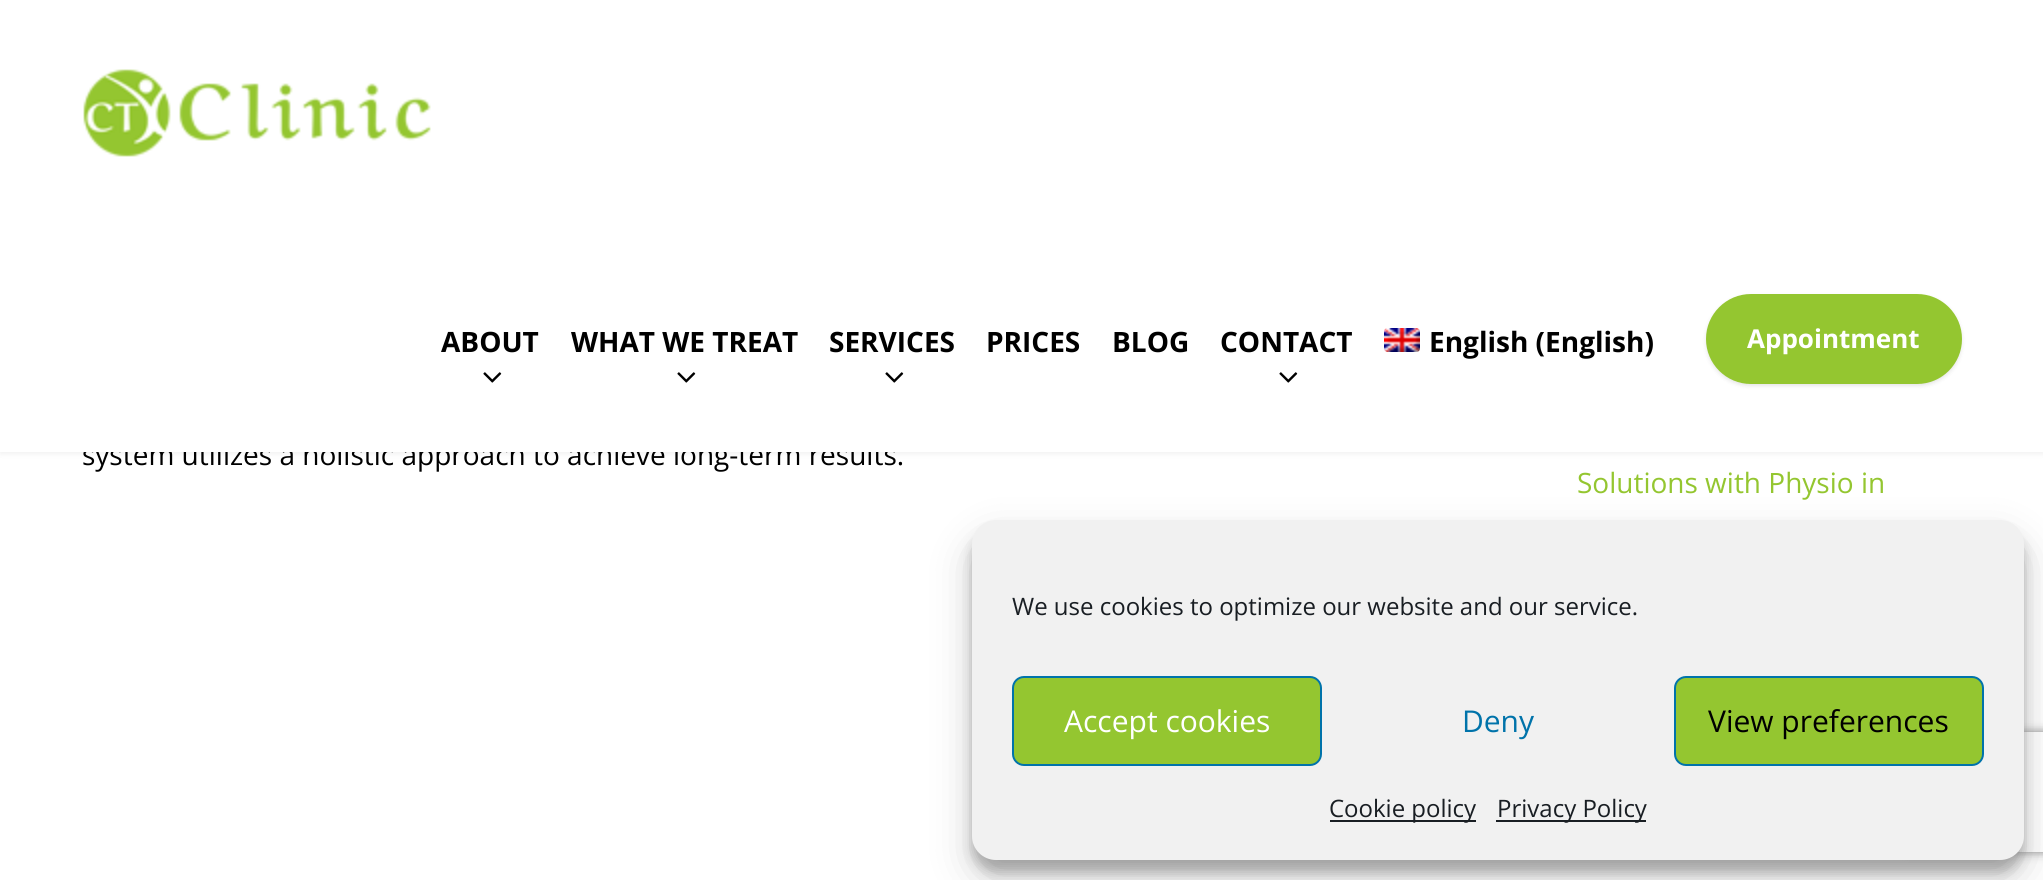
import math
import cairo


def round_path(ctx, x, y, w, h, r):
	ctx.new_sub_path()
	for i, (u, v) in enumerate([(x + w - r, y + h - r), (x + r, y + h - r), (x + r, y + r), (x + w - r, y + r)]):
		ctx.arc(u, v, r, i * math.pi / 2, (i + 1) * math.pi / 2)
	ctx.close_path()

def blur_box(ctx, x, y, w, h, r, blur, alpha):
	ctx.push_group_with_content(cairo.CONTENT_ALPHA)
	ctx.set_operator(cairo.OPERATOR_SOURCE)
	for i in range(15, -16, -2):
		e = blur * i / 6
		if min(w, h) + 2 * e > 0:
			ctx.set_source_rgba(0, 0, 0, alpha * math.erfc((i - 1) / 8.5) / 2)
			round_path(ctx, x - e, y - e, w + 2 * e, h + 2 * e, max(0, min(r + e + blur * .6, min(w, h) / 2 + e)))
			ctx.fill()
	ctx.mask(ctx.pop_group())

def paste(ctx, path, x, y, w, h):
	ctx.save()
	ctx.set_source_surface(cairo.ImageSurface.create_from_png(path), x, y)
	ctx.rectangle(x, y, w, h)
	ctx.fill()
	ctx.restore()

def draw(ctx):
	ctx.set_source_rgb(1, 1, 1)
	ctx.paint()
	ctx.set_source_rgb(0.196, 0.196, 0.196)
	blur_box(ctx, 0, 2, 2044, 452, 0, 3, 0.07)
	ctx.select_font_face('Open Sans')
	ctx.set_font_size(28)
	ctx.set_source_rgb(0, 0, 0)
	ctx.move_to(82, 465)
	ctx.show_text('system utilizes a holistic approach to achieve long-term results.')
	ctx.set_source_rgb(1, 1, 1)
	ctx.rectangle(0, 0, 2043, 452)
	ctx.fill()
	paste(ctx, 'media/1.png', 83, 69, 348, 88)
	ctx.select_font_face('Open Sans', cairo.FONT_SLANT_NORMAL, cairo.FONT_WEIGHT_BOLD)
	ctx.set_source_rgb(0, 0, 0)
	ctx.move_to(441, 352)
	ctx.show_text('ABOUT')
	paste(ctx, 'media/2.png', 483, 372, 19, 11)
	ctx.move_to(571, 352)
	ctx.show_text('WHAT WE TREAT')
	paste(ctx, 'media/2.png', 677, 372, 19, 11)
	ctx.move_to(829, 352)
	ctx.show_text('SERVICES')
	paste(ctx, 'media/2.png', 885, 372, 19, 11)
	for x, y, s in [
		(986, 352, 'PRICES'),
		(1112, 352, 'BLOG'),
		(1220, 352, 'CONTACT'),
	]:
		ctx.move_to(x, y)
		ctx.show_text(s)
	paste(ctx, 'media/2.png', 1279, 372, 19, 11)
	paste(ctx, 'media/3.png', 1384, 328, 36, 24)
	ctx.move_to(1429, 352)
	ctx.show_text('English (English)')
	ctx.set_source_rgb(0, 0, 0)
	blur_box(ctx, 1706, 296, 256, 90, 45, 2, 0.1)
	ctx.set_source_rgb(0.58, 0.776, 0.188)
	round_path(ctx, 1706, 294, 256, 90, 45)
	ctx.fill()
	ctx.set_font_size(26)
	ctx.set_source_rgb(1, 1, 1)
	ctx.move_to(1747, 348)
	ctx.show_text('Appointment')
	ctx.select_font_face('Open Sans')
	ctx.set_font_size(28)
	ctx.set_source_rgb(0.58, 0.776, 0.188)
	ctx.move_to(1577, 493)
	ctx.show_text('Solutions with Physio in')
	ctx.set_source_rgb(0, 0, 0)
	blur_box(ctx, 972, 532, 1052, 340, 24, 6, 0.23)
	blur_box(ctx, 972, 540, 1052, 340, 24, 20, 0.19)
	ctx.save()
	ctx.set_fill_rule(cairo.FILL_RULE_EVEN_ODD)
	ctx.new_path()
	ctx.move_to(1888, 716)
	ctx.line_to(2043, 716)
	ctx.line_to(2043, 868)
	ctx.line_to(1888, 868)
	ctx.close_path()
	ctx.move_to(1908, 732)
	ctx.line_to(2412, 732)
	ctx.curve_to(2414, 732, 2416, 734, 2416, 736)
	ctx.line_to(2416, 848)
	ctx.curve_to(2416, 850, 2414, 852, 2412, 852)
	ctx.line_to(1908, 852)
	ctx.curve_to(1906, 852, 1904, 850, 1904, 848)
	ctx.line_to(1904, 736)
	ctx.curve_to(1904, 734, 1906, 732, 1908, 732)
	ctx.close_path()
	ctx.clip()
	ctx.set_source_rgb(0.502, 0.502, 0.502)
	blur_box(ctx, 1904, 732, 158, 120, 4, 5, 1)
	ctx.restore()
	ctx.set_source_rgb(0.945, 0.945, 0.945)
	round_path(ctx, 972, 520, 1052, 340, 24)
	ctx.fill()
	ctx.set_font_size(24)
	ctx.set_source_rgb(0.098, 0.118, 0.137)
	ctx.move_to(1012, 615)
	ctx.show_text('We use cookies to optimize our website and our service.')
	ctx.set_source_rgb(0.58, 0.776, 0.188)
	round_path(ctx, 1013, 677, 308, 88, 11)
	ctx.fill_preserve()
	ctx.set_source_rgb(0, 0.451, 0.667)
	ctx.stroke()
	ctx.set_font_size(30)
	ctx.set_source_rgb(1, 1, 1)
	ctx.move_to(1064, 732)
	ctx.show_text('Accept cookies')
	ctx.set_source_rgb(0, 0.451, 0.667)
	ctx.move_to(1462, 732)
	ctx.show_text('Deny')
	ctx.set_source_rgb(0.58, 0.776, 0.188)
	round_path(ctx, 1675, 677, 308, 88, 11)
	ctx.fill_preserve()
	ctx.set_source_rgb(0, 0.451, 0.667)
	ctx.stroke()
	ctx.set_source_rgb(0, 0, 0)
	ctx.move_to(1708, 732)
	ctx.show_text('View preferences')
	ctx.set_source_rgb(0.098, 0.118, 0.137)
	ctx.rectangle(1330, 820, 146, 2)
	ctx.fill()
	ctx.set_font_size(24)
	ctx.move_to(1329, 817)
	ctx.show_text('Cookie policy')
	ctx.rectangle(1496, 820, 150, 2)
	ctx.fill()
	ctx.move_to(1497, 817)
	ctx.show_text('Privacy Policy')


surface = cairo.ImageSurface(cairo.FORMAT_RGB24, 2043, 880)
ctx = cairo.Context(surface)
options = cairo.FontOptions()
options.set_hint_metrics(cairo.HINT_METRICS_OFF)
options.set_hint_style(cairo.HINT_STYLE_NONE)
ctx.set_font_options(options)
ctx.set_miter_limit(4)
draw(ctx)
surface.write_to_png('image.png')
